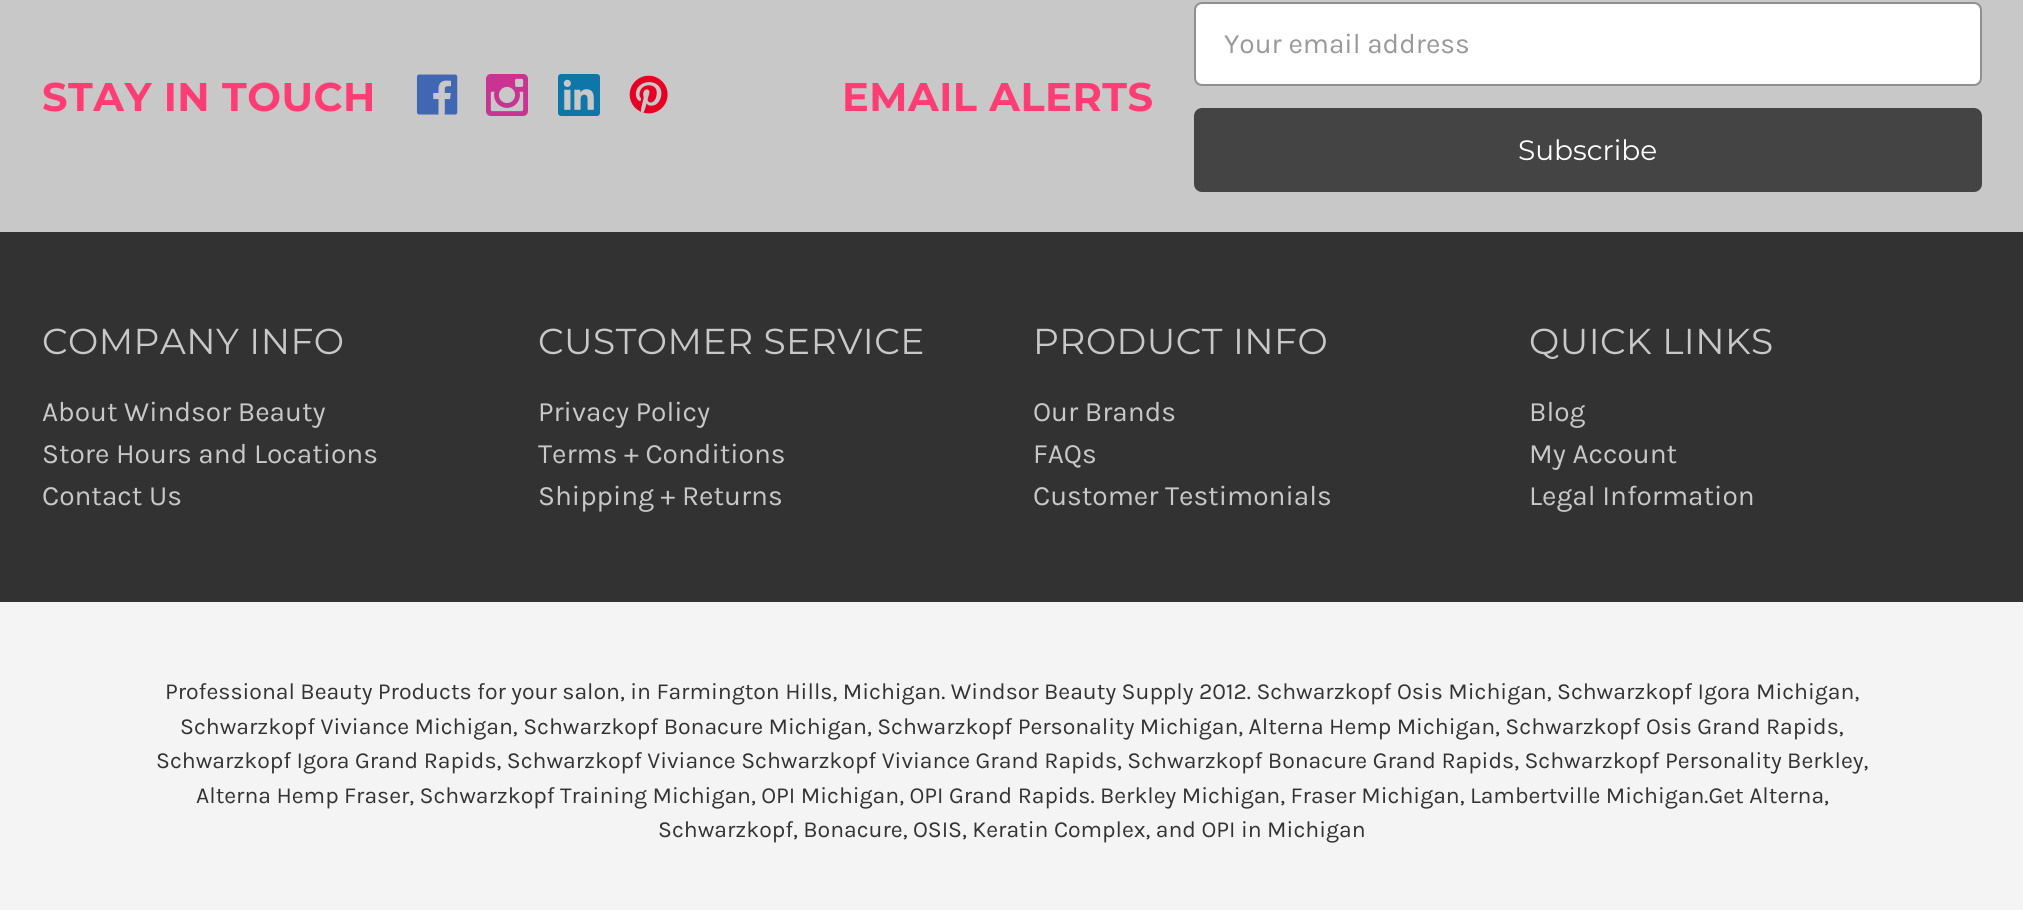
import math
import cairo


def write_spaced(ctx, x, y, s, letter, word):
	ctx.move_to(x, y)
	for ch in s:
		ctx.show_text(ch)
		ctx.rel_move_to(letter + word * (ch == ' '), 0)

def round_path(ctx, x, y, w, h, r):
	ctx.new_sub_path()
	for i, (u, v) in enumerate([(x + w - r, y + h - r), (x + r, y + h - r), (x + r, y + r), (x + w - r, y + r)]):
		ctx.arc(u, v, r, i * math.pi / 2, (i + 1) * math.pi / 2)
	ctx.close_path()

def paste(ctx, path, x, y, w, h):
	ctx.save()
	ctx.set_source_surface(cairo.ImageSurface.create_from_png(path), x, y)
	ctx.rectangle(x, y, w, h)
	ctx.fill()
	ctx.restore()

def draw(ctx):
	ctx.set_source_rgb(0.784, 0.784, 0.784)
	ctx.paint()
	ctx.select_font_face('Montserrat', cairo.FONT_SLANT_NORMAL, cairo.FONT_WEIGHT_BOLD)
	ctx.set_font_size(40)
	ctx.set_source_rgb(1, 0.235, 0.451)
	write_spaced(ctx, 42, 111, 'STAY IN TOUCH', 0.5, 0)
	paste(ctx, 'media/1.png', 416, 74, 42, 41)
	paste(ctx, 'media/2.png', 486, 74, 42, 42)
	paste(ctx, 'media/3.png', 558, 74, 42, 42)
	paste(ctx, 'media/4.png', 629, 75, 39, 39)
	write_spaced(ctx, 842, 111, 'EMAIL ALERTS', 0.5, 0)
	ctx.set_source_rgb(1, 1, 1)
	round_path(ctx, 1195, 3, 786, 82, 7)
	ctx.fill_preserve()
	ctx.set_source_rgb(0.561, 0.561, 0.561)
	ctx.stroke()
	ctx.select_font_face('Karla')
	ctx.set_font_size(28)
	ctx.set_source_rgb(0.6, 0.6, 0.6)
	ctx.move_to(1224, 53)
	ctx.show_text('Your email address')
	ctx.set_source_rgb(0.267, 0.267, 0.267)
	round_path(ctx, 1195, 109, 786, 82, 7)
	ctx.fill_preserve()
	ctx.stroke()
	ctx.select_font_face('Montserrat')
	ctx.set_source_rgb(1, 1, 1)
	ctx.move_to(1518, 160)
	ctx.show_text('Subscribe')
	ctx.set_source_rgb(0.196, 0.196, 0.196)
	ctx.rectangle(0, 232, 2023, 370)
	ctx.fill()
	ctx.set_font_size(36)
	ctx.set_source_rgb(0.784, 0.784, 0.784)
	write_spaced(ctx, 42, 354, 'COMPANY INFO', 0.5, 0)
	ctx.select_font_face('Karla')
	ctx.set_font_size(28)
	for x, y, s in [
		(42, 421, 'About Windsor Beauty'),
		(42, 463, 'Store Hours and Locations'),
		(42, 505, 'Contact Us'),
	]:
		ctx.move_to(x, y)
		ctx.show_text(s)
	ctx.select_font_face('Montserrat')
	ctx.set_font_size(36)
	write_spaced(ctx, 538, 354, 'CUSTOMER SERVICE', 0.5, 0)
	ctx.select_font_face('Karla')
	ctx.set_font_size(28)
	for x, y, s in [
		(538, 421, 'Privacy Policy'),
		(538, 463, 'Terms + Conditions'),
		(538, 505, 'Shipping + Returns'),
	]:
		ctx.move_to(x, y)
		ctx.show_text(s)
	ctx.select_font_face('Montserrat')
	ctx.set_font_size(36)
	write_spaced(ctx, 1033, 354, 'PRODUCT INFO', 0.5, 0)
	ctx.select_font_face('Karla')
	ctx.set_font_size(28)
	for x, y, s in [
		(1033, 421, 'Our Brands'),
		(1033, 463, 'FAQs'),
		(1033, 505, 'Customer Testimonials'),
	]:
		ctx.move_to(x, y)
		ctx.show_text(s)
	ctx.select_font_face('Montserrat')
	ctx.set_font_size(36)
	write_spaced(ctx, 1529, 354, 'QUICK LINKS', 0.5, 0)
	ctx.select_font_face('Karla')
	ctx.set_font_size(28)
	for x, y, s in [
		(1529, 421, 'Blog'),
		(1529, 463, 'My Account'),
		(1529, 505, 'Legal Information'),
	]:
		ctx.move_to(x, y)
		ctx.show_text(s)
	ctx.set_source_rgb(0.957, 0.957, 0.957)
	ctx.rectangle(0, 602, 2023, 308)
	ctx.fill()
	ctx.set_font_size(23)
	ctx.set_source_rgb(0.2, 0.2, 0.2)
	for x, y, s in [
		(165, 699, 'Professional Beauty Products for your salon, in Farmington Hills, Michigan. Windsor Beauty Supply 2012. Schwarzkopf Osis Michigan, Schwarzkopf Igora Michigan,'),
		(180, 734, 'Schwarzkopf Viviance Michigan, Schwarzkopf Bonacure Michigan, Schwarzkopf Personality Michigan, Alterna Hemp Michigan, Schwarzkopf Osis Grand Rapids,'),
		(156, 768, 'Schwarzkopf Igora Grand Rapids, Schwarzkopf Viviance Schwarzkopf Viviance Grand Rapids, Schwarzkopf Bonacure Grand Rapids, Schwarzkopf Personality Berkley,'),
		(196, 803, 'Alterna Hemp Fraser, Schwarzkopf Training Michigan, OPI Michigan, OPI Grand Rapids. Berkley Michigan, Fraser Michigan, Lambertville Michigan.Get Alterna,'),
		(658, 837, 'Schwarzkopf, Bonacure, OSIS, Keratin Complex, and OPI in Michigan'),
	]:
		ctx.move_to(x, y)
		ctx.show_text(s)


surface = cairo.ImageSurface(cairo.FORMAT_RGB24, 2023, 910)
ctx = cairo.Context(surface)
options = cairo.FontOptions()
options.set_hint_metrics(cairo.HINT_METRICS_OFF)
options.set_hint_style(cairo.HINT_STYLE_NONE)
ctx.set_font_options(options)
ctx.set_miter_limit(4)
draw(ctx)
surface.write_to_png('image.png')
